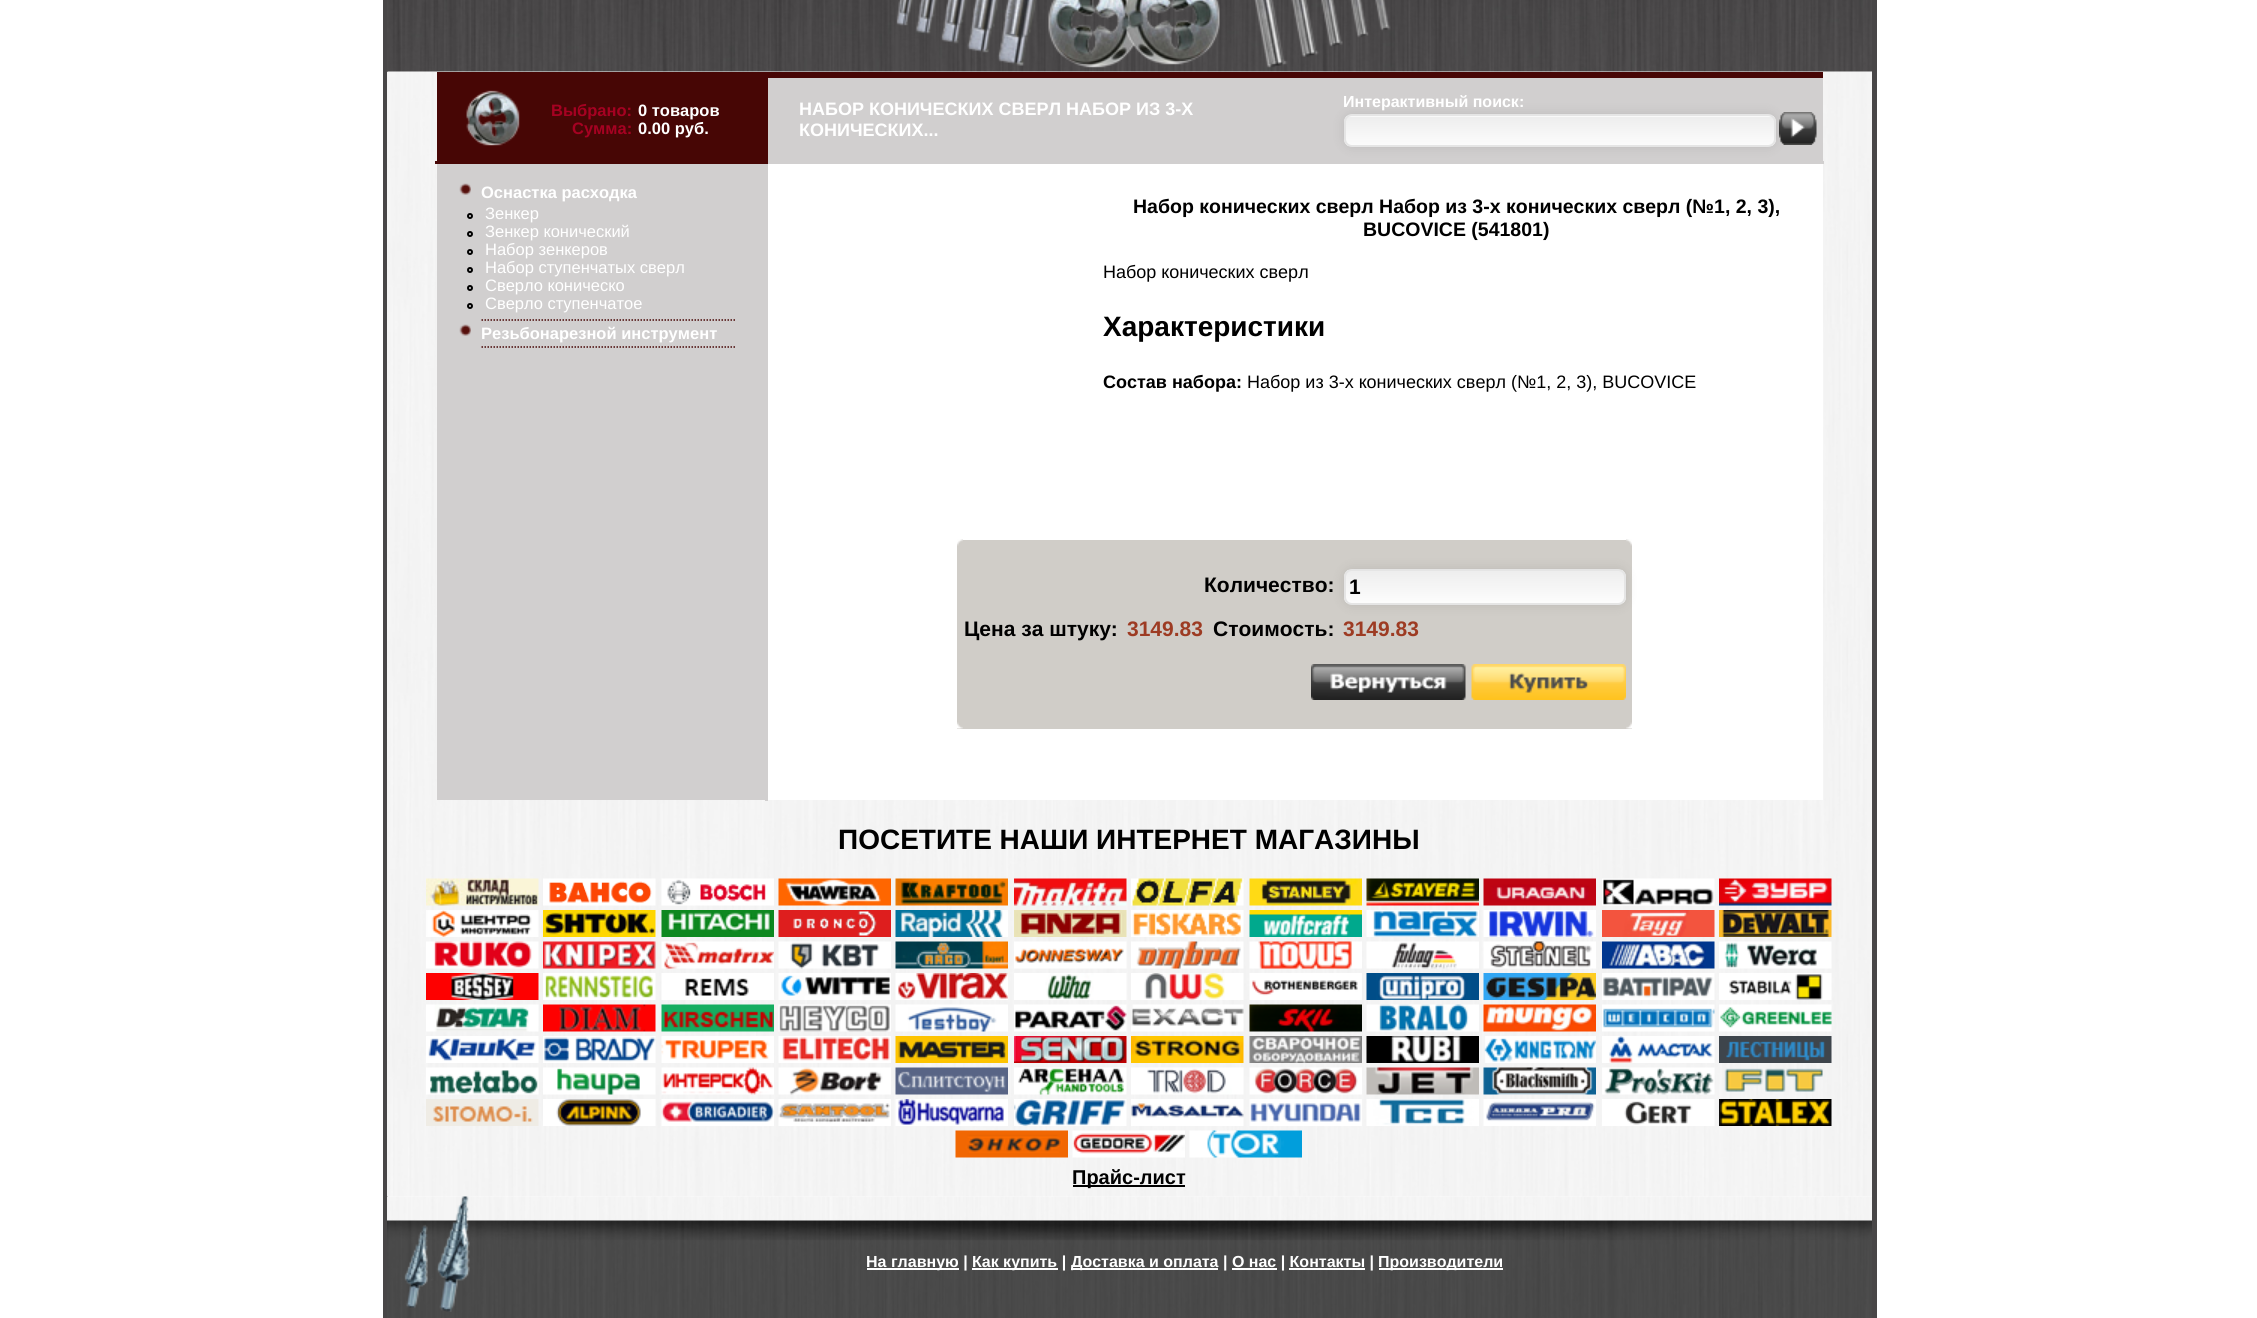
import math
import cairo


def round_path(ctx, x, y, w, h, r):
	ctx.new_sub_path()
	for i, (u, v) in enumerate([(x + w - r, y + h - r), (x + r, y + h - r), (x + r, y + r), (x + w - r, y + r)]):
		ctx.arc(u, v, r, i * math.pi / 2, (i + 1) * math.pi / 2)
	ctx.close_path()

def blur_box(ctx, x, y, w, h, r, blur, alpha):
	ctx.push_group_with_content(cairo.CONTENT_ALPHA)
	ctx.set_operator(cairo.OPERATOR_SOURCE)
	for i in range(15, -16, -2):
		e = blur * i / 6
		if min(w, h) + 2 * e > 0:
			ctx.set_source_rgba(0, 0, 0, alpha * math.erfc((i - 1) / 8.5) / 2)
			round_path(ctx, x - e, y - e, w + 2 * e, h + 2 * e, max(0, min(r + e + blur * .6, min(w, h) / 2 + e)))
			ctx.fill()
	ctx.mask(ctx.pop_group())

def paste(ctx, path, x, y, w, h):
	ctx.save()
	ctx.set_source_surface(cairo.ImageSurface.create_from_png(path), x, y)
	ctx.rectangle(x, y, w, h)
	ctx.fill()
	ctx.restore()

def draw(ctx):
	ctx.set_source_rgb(1, 1, 1)
	ctx.paint()
	ctx.set_source_rgb(0.282, 0.275, 0.278)
	ctx.rectangle(1872, 0, 5, 1318)
	ctx.fill()
	ctx.rectangle(383, 0, 5, 1318)
	ctx.fill()
	paste(ctx, 'media/2.png', 387, 71, 1485, 1126)
	paste(ctx, 'media/1.png', 387, 0, 1485, 72)
	ctx.set_source_rgb(0.278, 0.027, 0.02)
	ctx.rectangle(437, 72, 1386, 6)
	ctx.rectangle(437, 78, 328, 83)
	ctx.fill()
	ctx.set_source_rgb(0.82, 0.812, 0.812)
	ctx.rectangle(765, 161, 3, 640)
	ctx.rectangle(765, 161, 1059, 3)
	ctx.fill()
	ctx.set_source_rgb(0.278, 0.027, 0.02)
	ctx.rectangle(765, 77, 3, 87)
	ctx.rectangle(435, 161, 333, 3)
	ctx.fill()
	paste(ctx, 'media/3.png', 466, 90, 54, 56)
	ctx.select_font_face('Liberation Sans', cairo.FONT_SLANT_NORMAL, cairo.FONT_WEIGHT_BOLD)
	ctx.set_font_size(16.5)
	ctx.set_source_rgb(0.651, 0.004, 0.133)
	ctx.move_to(551, 116)
	ctx.show_text('Выбрано:')
	ctx.set_source_rgb(1, 1, 1)
	ctx.move_to(638, 116)
	ctx.show_text('0 товаров')
	ctx.set_source_rgb(0.651, 0.004, 0.133)
	ctx.move_to(572, 134)
	ctx.show_text('Сумма:')
	ctx.set_source_rgb(1, 1, 1)
	ctx.move_to(638, 134)
	ctx.show_text('0.00 руб.')
	ctx.set_source_rgb(0.82, 0.812, 0.812)
	ctx.rectangle(768, 78, 1055, 83)
	ctx.fill()
	ctx.set_font_size(18)
	ctx.set_source_rgb(1, 1, 1)
	ctx.move_to(799, 115)
	ctx.show_text('НАБОР КОНИЧЕСКИХ СВЕРЛ НАБОР ИЗ 3-Х')
	ctx.move_to(799, 136)
	ctx.show_text('КОНИЧЕСКИХ...')
	ctx.rectangle(768, 164, 1055, 636)
	ctx.fill()
	ctx.set_source_rgb(0, 0, 0)
	blur_box(ctx, 1344, 114, 432, 33, 8, 6, 0.1)
	ctx.save()
	round_path(ctx, 1344, 114, 432, 33, 8)
	ctx.clip()
	gradient = cairo.LinearGradient(1346, 116, 1346, 153)
	gradient.add_color_stop_rgba(0, 1, 1, 1, 1)
	gradient.add_color_stop_rgba(0.04, 0.933, 0.933, 0.933, 1)
	gradient.add_color_stop_rgba(1, 1, 1, 1, 1)
	ctx.set_source(gradient)
	ctx.rectangle(1344, 116, 432, 30)
	ctx.fill()
	ctx.restore()
	round_path(ctx, 1345, 115, 430, 31, 7)
	ctx.set_source_rgb(0.898, 0.898, 0.898)
	ctx.stroke()
	paste(ctx, 'media/4.png', 1779, 112, 38, 33)
	ctx.set_font_size(16)
	ctx.set_source_rgb(1, 1, 1)
	ctx.move_to(1343, 107)
	ctx.show_text('Интерактивный поиск:')
	ctx.set_source_rgb(0.82, 0.812, 0.812)
	ctx.rectangle(437, 164, 328, 636)
	ctx.fill()
	ctx.new_path()
	ctx.move_to(481.5, 320)
	ctx.line_to(736.5, 320)
	ctx.set_source_rgb(0.278, 0.027, 0.02)
	ctx.set_line_width(1.5)
	ctx.set_dash([1.5, 1.5])
	ctx.stroke()
	paste(ctx, 'media/5.png', 459, 183, 12, 12)
	ctx.set_font_size(16.5)
	ctx.set_source_rgb(1, 1, 1)
	ctx.move_to(481, 198)
	ctx.show_text('Оснастка расходка')
	ctx.new_path()
	ctx.arc(470, 216, 2, 0, 2 * math.pi)
	ctx.set_source_rgb(0, 0, 0)
	ctx.set_line_width(2)
	ctx.set_dash([])
	ctx.stroke()
	ctx.select_font_face('Liberation Sans')
	ctx.set_source_rgb(1, 1, 1)
	ctx.move_to(485, 219)
	ctx.show_text('Зенкер')
	ctx.new_path()
	ctx.arc(470, 234, 2, 0, 2 * math.pi)
	ctx.set_source_rgb(0, 0, 0)
	ctx.stroke()
	ctx.set_source_rgb(1, 1, 1)
	ctx.move_to(485, 237)
	ctx.show_text('Зенкер конический')
	ctx.new_path()
	ctx.arc(470, 252, 2, 0, 2 * math.pi)
	ctx.set_source_rgb(0, 0, 0)
	ctx.stroke()
	ctx.set_source_rgb(1, 1, 1)
	ctx.move_to(485, 255)
	ctx.show_text('Набор зенкеров')
	ctx.new_path()
	ctx.arc(470, 270, 2, 0, 2 * math.pi)
	ctx.set_source_rgb(0, 0, 0)
	ctx.stroke()
	ctx.set_source_rgb(1, 1, 1)
	ctx.move_to(485, 273)
	ctx.show_text('Набор ступенчатых сверл')
	ctx.new_path()
	ctx.arc(470, 288, 2, 0, 2 * math.pi)
	ctx.set_source_rgb(0, 0, 0)
	ctx.stroke()
	ctx.set_source_rgb(1, 1, 1)
	ctx.move_to(485, 291)
	ctx.show_text('Сверло коническо')
	ctx.new_path()
	ctx.arc(470, 306, 2, 0, 2 * math.pi)
	ctx.set_source_rgb(0, 0, 0)
	ctx.stroke()
	ctx.set_source_rgb(1, 1, 1)
	ctx.move_to(485, 309)
	ctx.show_text('Сверло ступенчатое')
	ctx.new_path()
	ctx.move_to(481.5, 347)
	ctx.line_to(736.5, 347)
	ctx.set_source_rgb(0.278, 0.027, 0.02)
	ctx.set_line_width(1.5)
	ctx.set_dash([1.5, 1.5])
	ctx.stroke()
	paste(ctx, 'media/5.png', 459, 324, 12, 12)
	ctx.select_font_face('Liberation Sans', cairo.FONT_SLANT_NORMAL, cairo.FONT_WEIGHT_BOLD)
	ctx.set_source_rgb(1, 1, 1)
	ctx.move_to(481, 339)
	ctx.show_text('Резьбонарезной инструмент')
	ctx.set_font_size(19.5)
	ctx.set_source_rgb(0, 0, 0)
	ctx.move_to(1133, 213)
	ctx.show_text('Набор конических сверл Набор из 3-х конических сверл (№1, 2, 3),')
	ctx.move_to(1363, 236)
	ctx.show_text('BUCOVICE (541801)')
	ctx.select_font_face('Liberation Sans')
	ctx.set_font_size(18)
	ctx.move_to(1103, 278)
	ctx.show_text('Набор конических сверл')
	ctx.select_font_face('Liberation Sans', cairo.FONT_SLANT_NORMAL, cairo.FONT_WEIGHT_BOLD)
	ctx.set_font_size(28)
	ctx.move_to(1103, 336)
	ctx.show_text('Характеристики')
	ctx.set_font_size(18)
	ctx.move_to(1103, 388)
	ctx.show_text('Состав набора:')
	ctx.select_font_face('Liberation Sans')
	ctx.move_to(1247, 388)
	ctx.show_text('Набор из 3-х конических сверл (№1, 2, 3), BUCOVICE')
	ctx.set_source_rgb(0.816, 0.804, 0.784)
	ctx.rectangle(957, 540, 675, 189)
	ctx.fill()
	paste(ctx, 'media/6.png', 957, 539, 6, 7)
	paste(ctx, 'media/7.png', 1626, 539, 6, 7)
	ctx.select_font_face('Liberation Sans', cairo.FONT_SLANT_NORMAL, cairo.FONT_WEIGHT_BOLD)
	ctx.set_font_size(21)
	ctx.set_source_rgb(0, 0, 0)
	ctx.move_to(1204, 592)
	ctx.show_text('Количество:')
	ctx.set_source_rgb(0, 0, 0)
	blur_box(ctx, 1344, 569, 282, 36, 8, 6, 0.1)
	ctx.save()
	round_path(ctx, 1344, 569, 282, 36, 8)
	ctx.clip()
	gradient = cairo.LinearGradient(1346, 570, 1346, 608)
	gradient.add_color_stop_rgba(0, 1, 1, 1, 1)
	gradient.add_color_stop_rgba(0.04, 0.933, 0.933, 0.933, 1)
	gradient.add_color_stop_rgba(1, 1, 1, 1, 1)
	ctx.set_source(gradient)
	ctx.rectangle(1344, 570, 282, 33)
	ctx.fill()
	ctx.restore()
	round_path(ctx, 1345, 570, 280, 34, 7)
	ctx.set_source_rgb(0.898, 0.898, 0.898)
	ctx.set_line_width(2)
	ctx.set_dash([])
	ctx.stroke()
	ctx.set_source_rgb(0, 0, 0)
	ctx.move_to(1349, 594)
	ctx.show_text('1')
	ctx.move_to(964, 636)
	ctx.show_text('Цена за штуку:')
	ctx.set_source_rgb(0.616, 0.231, 0.137)
	ctx.move_to(1127, 636)
	ctx.show_text('3149.83')
	ctx.set_source_rgb(0, 0, 0)
	ctx.move_to(1213, 636)
	ctx.show_text('Стоимость:')
	ctx.set_source_rgb(0.616, 0.231, 0.137)
	ctx.move_to(1343, 636)
	ctx.show_text('3149.83')
	paste(ctx, 'media/8.png', 1311, 664, 155, 36)
	paste(ctx, 'media/9.png', 1471, 664, 155, 36)
	paste(ctx, 'media/10.png', 957, 722, 6, 7)
	paste(ctx, 'media/11.png', 1626, 722, 6, 7)
	ctx.set_font_size(28)
	ctx.set_source_rgb(0, 0, 0)
	ctx.move_to(838, 849)
	ctx.show_text('ПОСЕТИТЕ НАШИ ИНТЕРНЕТ МАГАЗИНЫ')
	paste(ctx, 'media/12.png', 426, 878, 113, 28)
	paste(ctx, 'media/13.png', 543, 878, 113, 28)
	paste(ctx, 'media/14.png', 661, 878, 113, 28)
	paste(ctx, 'media/15.png', 778, 878, 113, 28)
	paste(ctx, 'media/16.png', 895, 878, 113, 28)
	paste(ctx, 'media/17.png', 1014, 878, 113, 28)
	paste(ctx, 'media/18.png', 1131, 878, 113, 28)
	paste(ctx, 'media/19.png', 1249, 878, 113, 28)
	paste(ctx, 'media/20.png', 1366, 878, 113, 28)
	paste(ctx, 'media/21.png', 1483, 878, 113, 28)
	paste(ctx, 'media/22.png', 1602, 878, 113, 28)
	paste(ctx, 'media/23.png', 1719, 878, 113, 28)
	paste(ctx, 'media/24.png', 426, 910, 113, 27)
	paste(ctx, 'media/25.png', 543, 910, 113, 27)
	paste(ctx, 'media/26.png', 661, 910, 113, 27)
	paste(ctx, 'media/27.png', 778, 910, 113, 27)
	paste(ctx, 'media/28.png', 895, 910, 113, 27)
	paste(ctx, 'media/29.png', 1014, 910, 113, 27)
	paste(ctx, 'media/30.png', 1131, 910, 113, 27)
	paste(ctx, 'media/31.png', 1249, 910, 113, 27)
	paste(ctx, 'media/32.png', 1366, 910, 113, 27)
	paste(ctx, 'media/33.png', 1483, 910, 113, 27)
	paste(ctx, 'media/34.png', 1602, 910, 113, 27)
	paste(ctx, 'media/35.png', 1719, 910, 113, 27)
	paste(ctx, 'media/36.png', 426, 941, 113, 28)
	paste(ctx, 'media/37.png', 543, 941, 113, 28)
	paste(ctx, 'media/38.png', 661, 941, 113, 28)
	paste(ctx, 'media/39.png', 778, 941, 113, 28)
	paste(ctx, 'media/40.png', 895, 941, 113, 28)
	paste(ctx, 'media/41.png', 1014, 941, 113, 28)
	paste(ctx, 'media/42.png', 1131, 941, 113, 28)
	paste(ctx, 'media/43.png', 1249, 941, 113, 28)
	paste(ctx, 'media/44.png', 1366, 941, 113, 28)
	paste(ctx, 'media/45.png', 1483, 941, 113, 28)
	paste(ctx, 'media/46.png', 1602, 941, 113, 28)
	paste(ctx, 'media/47.png', 1719, 941, 113, 28)
	paste(ctx, 'media/48.png', 426, 973, 113, 27)
	paste(ctx, 'media/49.png', 543, 973, 113, 27)
	paste(ctx, 'media/50.png', 661, 973, 113, 27)
	paste(ctx, 'media/51.png', 778, 973, 113, 27)
	paste(ctx, 'media/52.png', 895, 973, 113, 27)
	paste(ctx, 'media/53.png', 1014, 973, 113, 27)
	paste(ctx, 'media/54.png', 1131, 973, 113, 27)
	paste(ctx, 'media/55.png', 1249, 973, 113, 27)
	paste(ctx, 'media/56.png', 1366, 973, 113, 27)
	paste(ctx, 'media/57.png', 1483, 973, 113, 27)
	paste(ctx, 'media/58.png', 1602, 973, 113, 27)
	paste(ctx, 'media/59.png', 1719, 973, 113, 27)
	paste(ctx, 'media/60.png', 426, 1004, 113, 28)
	paste(ctx, 'media/61.png', 543, 1004, 113, 28)
	paste(ctx, 'media/62.png', 661, 1004, 113, 28)
	paste(ctx, 'media/63.png', 778, 1004, 113, 28)
	paste(ctx, 'media/64.png', 895, 1004, 113, 28)
	paste(ctx, 'media/65.png', 1014, 1004, 113, 28)
	paste(ctx, 'media/66.png', 1131, 1004, 113, 28)
	paste(ctx, 'media/67.png', 1249, 1004, 113, 28)
	paste(ctx, 'media/68.png', 1366, 1004, 113, 28)
	paste(ctx, 'media/69.png', 1483, 1004, 113, 28)
	paste(ctx, 'media/70.png', 1602, 1004, 113, 28)
	paste(ctx, 'media/71.png', 1719, 1004, 113, 28)
	paste(ctx, 'media/72.png', 426, 1036, 113, 27)
	paste(ctx, 'media/73.png', 543, 1036, 113, 27)
	paste(ctx, 'media/74.png', 661, 1036, 113, 27)
	paste(ctx, 'media/75.png', 778, 1036, 113, 27)
	paste(ctx, 'media/76.png', 895, 1036, 113, 27)
	paste(ctx, 'media/77.png', 1014, 1036, 113, 27)
	paste(ctx, 'media/78.png', 1131, 1036, 113, 27)
	paste(ctx, 'media/79.png', 1249, 1036, 113, 27)
	paste(ctx, 'media/80.png', 1366, 1036, 113, 27)
	paste(ctx, 'media/81.png', 1484, 1036, 112, 27)
	paste(ctx, 'media/82.png', 1602, 1036, 113, 27)
	paste(ctx, 'media/83.png', 1719, 1036, 113, 27)
	paste(ctx, 'media/84.png', 426, 1067, 113, 28)
	paste(ctx, 'media/85.png', 543, 1067, 113, 28)
	paste(ctx, 'media/86.png', 661, 1067, 113, 28)
	paste(ctx, 'media/87.png', 778, 1067, 113, 28)
	paste(ctx, 'media/88.png', 895, 1067, 113, 28)
	paste(ctx, 'media/89.png', 1014, 1067, 113, 28)
	paste(ctx, 'media/90.png', 1131, 1067, 113, 28)
	paste(ctx, 'media/91.png', 1249, 1067, 113, 28)
	paste(ctx, 'media/92.png', 1366, 1067, 113, 28)
	paste(ctx, 'media/93.png', 1483, 1067, 113, 28)
	paste(ctx, 'media/94.png', 1602, 1067, 113, 28)
	paste(ctx, 'media/95.png', 1724, 1068, 99, 24)
	paste(ctx, 'media/96.png', 426, 1099, 113, 27)
	paste(ctx, 'media/97.png', 543, 1099, 113, 27)
	paste(ctx, 'media/98.png', 661, 1099, 113, 27)
	paste(ctx, 'media/99.png', 778, 1099, 113, 27)
	paste(ctx, 'media/100.png', 895, 1099, 113, 27)
	paste(ctx, 'media/101.png', 1014, 1099, 113, 27)
	paste(ctx, 'media/102.png', 1131, 1099, 113, 27)
	paste(ctx, 'media/103.png', 1249, 1099, 113, 27)
	paste(ctx, 'media/104.png', 1366, 1099, 113, 27)
	paste(ctx, 'media/105.png', 1483, 1099, 113, 27)
	paste(ctx, 'media/106.png', 1602, 1099, 113, 27)
	paste(ctx, 'media/107.png', 1719, 1099, 113, 27)
	paste(ctx, 'media/108.png', 955, 1130, 113, 28)
	paste(ctx, 'media/109.png', 1072, 1130, 113, 28)
	paste(ctx, 'media/110.png', 1189, 1130, 113, 28)
	ctx.rectangle(1073, 1185, 112, 2)
	ctx.fill()
	ctx.set_font_size(20)
	ctx.move_to(1072, 1184)
	ctx.show_text('Прайс-лист')
	paste(ctx, 'media/111.png', 387, 1196, 1485, 122)
	paste(ctx, 'media/112.png', 404, 1196, 66, 116)
	ctx.set_source_rgb(1, 1, 1)
	ctx.rectangle(867, 1268, 92, 2)
	ctx.fill()
	ctx.set_font_size(16)
	ctx.move_to(866, 1267)
	ctx.show_text('На главную |')
	ctx.rectangle(972, 1268, 86, 2)
	ctx.fill()
	ctx.move_to(972, 1267)
	ctx.show_text('Как купить |')
	ctx.rectangle(1071, 1268, 147, 2)
	ctx.fill()
	ctx.move_to(1071, 1267)
	ctx.show_text('Доставка и оплата | О нас | Контакты |')
	ctx.rectangle(1379, 1268, 124, 2)
	ctx.fill()
	ctx.move_to(1378, 1267)
	ctx.show_text('Производители')
	ctx.rectangle(1232, 1268, 45, 2)
	ctx.fill()
	ctx.rectangle(1289, 1268, 76, 2)
	ctx.fill()


surface = cairo.ImageSurface(cairo.FORMAT_RGB24, 2257, 1318)
ctx = cairo.Context(surface)
options = cairo.FontOptions()
options.set_hint_metrics(cairo.HINT_METRICS_OFF)
options.set_hint_style(cairo.HINT_STYLE_NONE)
ctx.set_font_options(options)
ctx.set_miter_limit(4)
draw(ctx)
surface.write_to_png('image.png')
